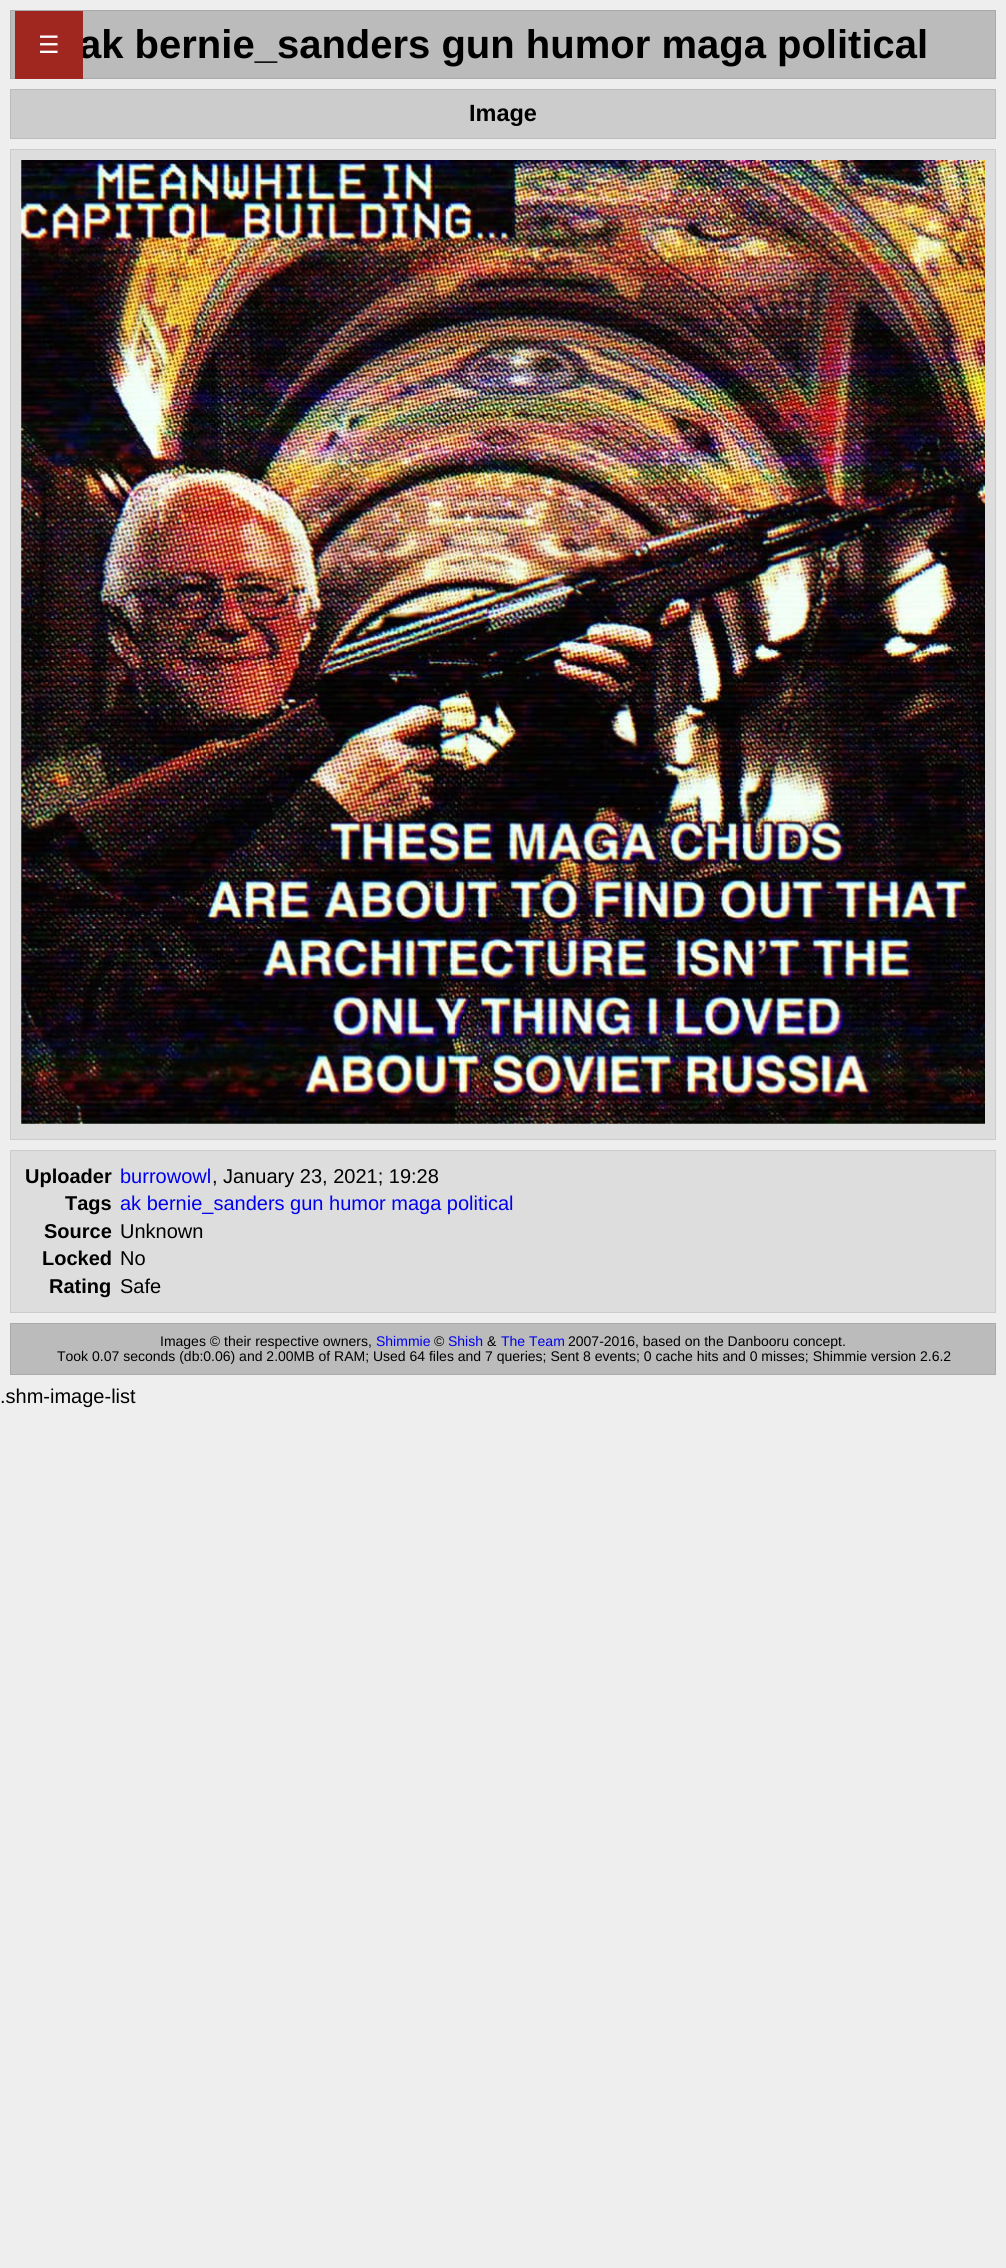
import math
import cairo


def paste(ctx, path, x, y, w, h):
	ctx.save()
	ctx.set_source_surface(cairo.ImageSurface.create_from_png(path), x, y)
	ctx.rectangle(x, y, w, h)
	ctx.fill()
	ctx.restore()

def draw(ctx):
	ctx.set_source_rgb(0.933, 0.933, 0.933)
	ctx.paint()
	ctx.set_source_rgb(0.733, 0.733, 0.733)
	ctx.rectangle(10.5, 10.5, 985, 68)
	ctx.fill_preserve()
	ctx.set_source_rgb(0.667, 0.667, 0.667)
	ctx.set_line_width(1)
	ctx.stroke()
	ctx.select_font_face('Liberation Sans', cairo.FONT_SLANT_NORMAL, cairo.FONT_WEIGHT_BOLD)
	ctx.set_font_size(40)
	ctx.set_source_rgb(0, 0, 0)
	ctx.move_to(79, 58)
	ctx.show_text('ak bernie_sanders gun humor maga political')
	ctx.set_source_rgb(0.627, 0.149, 0.125)
	ctx.rectangle(15, 11, 68, 68)
	ctx.fill()
	ctx.select_font_face('DejaVu Sans')
	ctx.set_font_size(24)
	ctx.set_source_rgb(1, 1, 1)
	ctx.move_to(38, 53)
	ctx.show_text('☰')
	ctx.set_source_rgb(0.8, 0.8, 0.8)
	ctx.rectangle(10.5, 89.5, 985, 49)
	ctx.fill_preserve()
	ctx.set_source_rgb(0.733, 0.733, 0.733)
	ctx.stroke()
	ctx.select_font_face('Liberation Sans', cairo.FONT_SLANT_NORMAL, cairo.FONT_WEIGHT_BOLD)
	ctx.set_font_size(23.5)
	ctx.set_source_rgb(0, 0, 0)
	ctx.move_to(469, 121)
	ctx.show_text('Image')
	ctx.set_source_rgb(0.867, 0.867, 0.867)
	ctx.rectangle(10.5, 149.5, 985, 990)
	ctx.fill_preserve()
	ctx.set_source_rgb(0.8, 0.8, 0.8)
	ctx.stroke()
	paste(ctx, 'media/1.png', 21, 160, 964, 964)
	ctx.set_source_rgb(0.867, 0.867, 0.867)
	ctx.rectangle(10.5, 1150.5, 985, 162)
	ctx.fill_preserve()
	ctx.set_source_rgb(0.8, 0.8, 0.8)
	ctx.stroke()
	ctx.set_font_size(20)
	ctx.set_source_rgb(0, 0, 0)
	ctx.move_to(25, 1183)
	ctx.show_text('Uploader')
	ctx.select_font_face('Liberation Sans')
	ctx.set_source_rgb(0, 0, 0.933)
	ctx.move_to(120, 1183)
	ctx.show_text('burrowowl')
	ctx.set_source_rgb(0, 0, 0)
	ctx.move_to(212, 1183)
	ctx.show_text(', January 23, 2021; 19:28')
	ctx.select_font_face('Liberation Sans', cairo.FONT_SLANT_NORMAL, cairo.FONT_WEIGHT_BOLD)
	ctx.move_to(65, 1210)
	ctx.show_text('Tags')
	ctx.select_font_face('Liberation Sans')
	ctx.set_source_rgb(0, 0, 0.933)
	ctx.move_to(120, 1210)
	ctx.show_text('ak bernie_sanders gun humor maga political')
	ctx.select_font_face('Liberation Sans', cairo.FONT_SLANT_NORMAL, cairo.FONT_WEIGHT_BOLD)
	ctx.set_source_rgb(0, 0, 0)
	ctx.move_to(44, 1238)
	ctx.show_text('Source')
	ctx.select_font_face('Liberation Sans')
	ctx.move_to(120, 1238)
	ctx.show_text('Unknown')
	ctx.select_font_face('Liberation Sans', cairo.FONT_SLANT_NORMAL, cairo.FONT_WEIGHT_BOLD)
	ctx.move_to(42, 1265)
	ctx.show_text('Locked')
	ctx.select_font_face('Liberation Sans')
	ctx.move_to(120, 1265)
	ctx.show_text('No')
	ctx.select_font_face('Liberation Sans', cairo.FONT_SLANT_NORMAL, cairo.FONT_WEIGHT_BOLD)
	ctx.move_to(49, 1293)
	ctx.show_text('Rating')
	ctx.select_font_face('Liberation Sans')
	ctx.move_to(120, 1293)
	ctx.show_text('Safe')
	ctx.set_source_rgb(0.733, 0.733, 0.733)
	ctx.rectangle(10.5, 1323.5, 985, 51)
	ctx.fill_preserve()
	ctx.set_source_rgb(0.667, 0.667, 0.667)
	ctx.stroke()
	ctx.set_font_size(14)
	ctx.set_source_rgb(0, 0, 0)
	ctx.move_to(160, 1346)
	ctx.show_text('Images © their respective owners,')
	ctx.set_source_rgb(0, 0, 0.933)
	ctx.move_to(376, 1346)
	ctx.show_text('Shimmie')
	ctx.set_source_rgb(0, 0, 0)
	ctx.move_to(434, 1346)
	ctx.show_text('©')
	ctx.set_source_rgb(0, 0, 0.933)
	ctx.move_to(448, 1346)
	ctx.show_text('Shish')
	ctx.set_source_rgb(0, 0, 0)
	ctx.move_to(487, 1346)
	ctx.show_text('&')
	ctx.set_source_rgb(0, 0, 0.933)
	ctx.move_to(501, 1346)
	ctx.show_text('The Team')
	ctx.set_source_rgb(0, 0, 0)
	ctx.move_to(568, 1346)
	ctx.show_text('2007-2016, based on the Danbooru concept.')
	ctx.move_to(57, 1361)
	ctx.show_text('Took 0.07 seconds (db:0.06) and 2.00MB of RAM; Used 64 files and 7 queries; Sent 8 events; 0 cache hits and 0 misses; Shimmie version 2.6.2')
	ctx.set_font_size(20)
	ctx.move_to(0, 1403)
	ctx.show_text('.shm-image-list')


surface = cairo.ImageSurface(cairo.FORMAT_RGB24, 1006, 2268)
ctx = cairo.Context(surface)
options = cairo.FontOptions()
options.set_hint_metrics(cairo.HINT_METRICS_OFF)
options.set_hint_style(cairo.HINT_STYLE_NONE)
ctx.set_font_options(options)
ctx.set_miter_limit(4)
draw(ctx)
surface.write_to_png('image.png')
